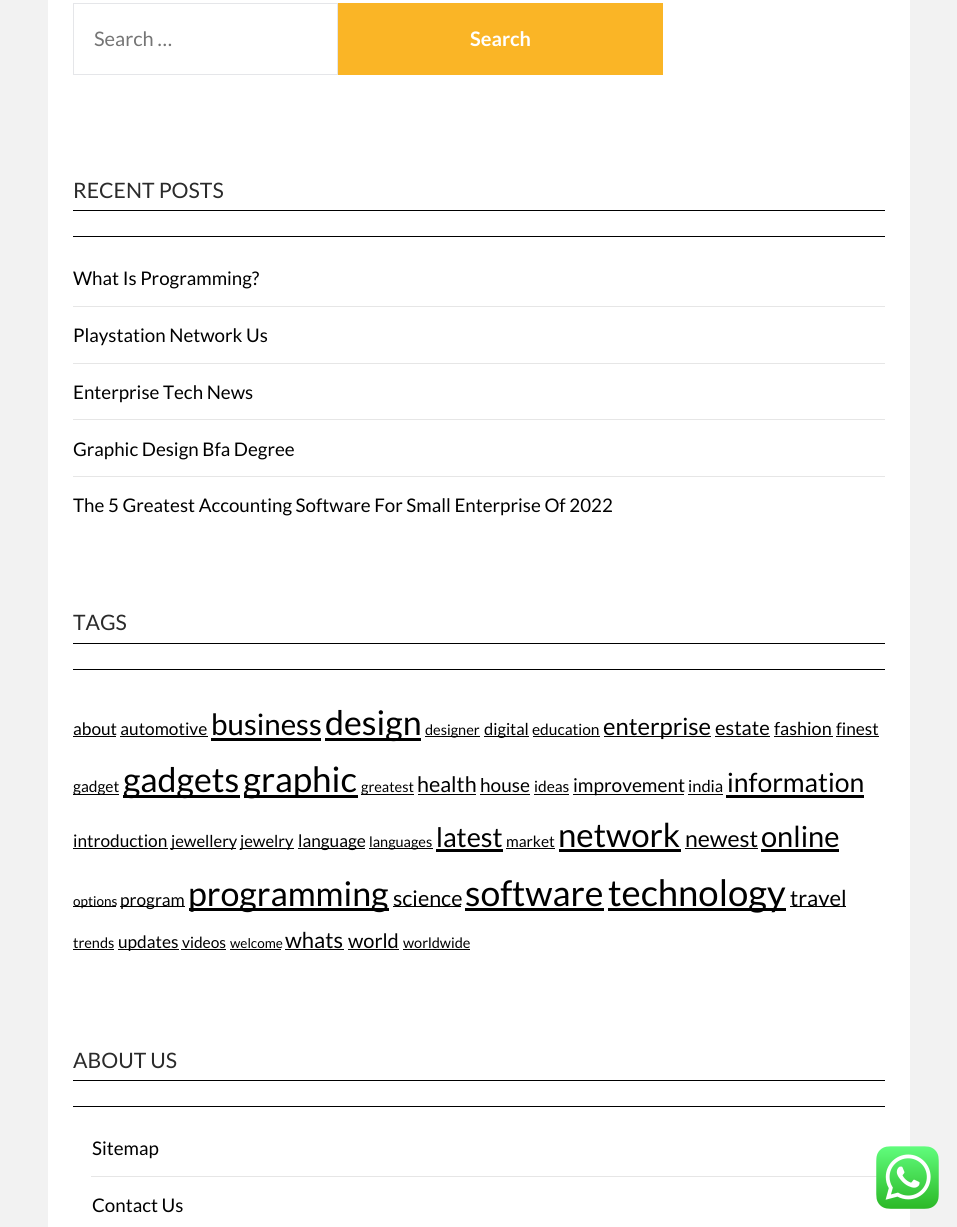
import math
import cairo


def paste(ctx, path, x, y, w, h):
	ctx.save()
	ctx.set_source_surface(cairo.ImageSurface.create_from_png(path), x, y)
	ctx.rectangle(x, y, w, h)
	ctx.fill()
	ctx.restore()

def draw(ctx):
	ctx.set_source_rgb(0.949, 0.949, 0.949)
	ctx.paint()
	ctx.set_source_rgb(1, 1, 1)
	ctx.rectangle(48, 0, 862, 1227)
	ctx.fill()
	ctx.rectangle(73.5, 3.5, 264, 71)
	ctx.set_source_rgb(0.898, 0.902, 0.914)
	ctx.set_line_width(1)
	ctx.stroke()
	ctx.select_font_face('Lato')
	ctx.set_font_size(20)
	ctx.set_source_rgb(0.459, 0.459, 0.459)
	ctx.move_to(94, 46)
	ctx.show_text('Search …')
	ctx.set_source_rgb(0.98, 0.71, 0.149)
	ctx.rectangle(338, 3, 325, 72)
	ctx.fill()
	ctx.select_font_face('Lato', cairo.FONT_SLANT_NORMAL, cairo.FONT_WEIGHT_BOLD)
	ctx.set_source_rgb(1, 1, 1)
	ctx.move_to(470, 46)
	ctx.show_text('Search')
	ctx.set_source_rgb(0, 0, 0)
	ctx.rectangle(73, 236, 812, 1)
	ctx.fill()
	ctx.rectangle(73, 210, 812, 1)
	ctx.fill()
	ctx.select_font_face('Lato')
	ctx.set_font_size(21.25)
	ctx.set_source_rgb(0.169, 0.169, 0.169)
	ctx.move_to(73, 198)
	ctx.show_text('RECENT POSTS')
	ctx.set_source_rgb(0.902, 0.902, 0.902)
	ctx.rectangle(73, 306, 812, 1)
	ctx.fill()
	ctx.set_font_size(18.75)
	ctx.set_source_rgb(0, 0, 0)
	ctx.move_to(73, 285)
	ctx.show_text('What Is Programming?')
	ctx.set_source_rgb(0.902, 0.902, 0.902)
	ctx.rectangle(73, 363, 812, 1)
	ctx.fill()
	ctx.set_source_rgb(0, 0, 0)
	ctx.move_to(73, 342)
	ctx.show_text('Playstation Network Us')
	ctx.set_source_rgb(0.902, 0.902, 0.902)
	ctx.rectangle(73, 419, 812, 1)
	ctx.fill()
	ctx.set_source_rgb(0, 0, 0)
	ctx.move_to(73, 399)
	ctx.show_text('Enterprise Tech News')
	ctx.set_source_rgb(0.902, 0.902, 0.902)
	ctx.rectangle(73, 476, 812, 1)
	ctx.fill()
	ctx.set_source_rgb(0, 0, 0)
	ctx.move_to(73, 456)
	ctx.show_text('Graphic Design Bfa Degree')
	ctx.move_to(73, 512)
	ctx.show_text('The 5 Greatest Accounting Software For Small Enterprise Of 2022')
	ctx.rectangle(73, 669, 812, 1)
	ctx.fill()
	ctx.rectangle(73, 643, 812, 1)
	ctx.fill()
	ctx.set_font_size(21.25)
	ctx.set_source_rgb(0.169, 0.169, 0.169)
	ctx.move_to(73, 630)
	ctx.show_text('TAGS')
	ctx.set_font_size(17.25)
	ctx.set_source_rgb(0, 0, 0)
	ctx.move_to(73, 735)
	ctx.show_text('about automotive')
	ctx.rectangle(73, 736, 43, 1)
	ctx.fill()
	ctx.set_font_size(29.5)
	ctx.move_to(211, 735)
	ctx.show_text('business')
	ctx.rectangle(211, 738, 110, 3)
	ctx.fill()
	ctx.rectangle(325, 738, 96, 3)
	ctx.fill()
	ctx.set_font_size(34)
	ctx.move_to(325, 735)
	ctx.show_text('design')
	ctx.rectangle(425, 736, 55, 1)
	ctx.fill()
	ctx.set_font_size(14.5)
	ctx.move_to(425, 735)
	ctx.show_text('designer')
	ctx.rectangle(484, 736, 45, 1)
	ctx.fill()
	ctx.set_font_size(16.5)
	ctx.move_to(484, 735)
	ctx.show_text('digital')
	ctx.set_font_size(15.5)
	ctx.move_to(532, 735)
	ctx.show_text('education')
	ctx.rectangle(533, 736, 67, 1)
	ctx.fill()
	ctx.rectangle(604, 736, 107, 1)
	ctx.fill()
	ctx.set_font_size(23.75)
	ctx.move_to(603, 735)
	ctx.show_text('enterprise')
	ctx.set_font_size(20)
	ctx.move_to(715, 735)
	ctx.show_text('estate')
	ctx.rectangle(715, 736, 55, 1)
	ctx.fill()
	ctx.set_font_size(18)
	ctx.move_to(774, 735)
	ctx.show_text('fashion')
	ctx.rectangle(774, 736, 59, 1)
	ctx.fill()
	ctx.set_font_size(17.25)
	ctx.move_to(836, 735)
	ctx.show_text('finest')
	ctx.rectangle(836, 736, 43, 1)
	ctx.rectangle(120, 736, 88, 1)
	ctx.rectangle(73, 794, 46, 1)
	ctx.fill()
	ctx.set_font_size(15.5)
	ctx.move_to(73, 792)
	ctx.show_text('gadget')
	ctx.rectangle(123, 795, 117, 3)
	ctx.fill()
	ctx.set_font_size(34)
	ctx.move_to(123, 792)
	ctx.show_text('gadgets')
	ctx.rectangle(244, 795, 114, 3)
	ctx.fill()
	ctx.set_font_size(35)
	ctx.move_to(243, 792)
	ctx.show_text('graphic')
	ctx.rectangle(361, 794, 53, 1)
	ctx.fill()
	ctx.set_font_size(14.5)
	ctx.move_to(361, 792)
	ctx.show_text('greatest')
	ctx.set_font_size(21.5)
	ctx.move_to(417, 792)
	ctx.show_text('health')
	ctx.rectangle(418, 794, 58, 1)
	ctx.fill()
	ctx.set_font_size(19)
	ctx.move_to(480, 792)
	ctx.show_text('house')
	ctx.rectangle(480, 794, 50, 1)
	ctx.fill()
	ctx.set_font_size(15.5)
	ctx.move_to(534, 792)
	ctx.show_text('ideas')
	ctx.rectangle(534, 794, 35, 1)
	ctx.fill()
	ctx.rectangle(573, 794, 111, 1)
	ctx.fill()
	ctx.set_font_size(19)
	ctx.move_to(573, 792)
	ctx.show_text('improvement')
	ctx.set_font_size(16.5)
	ctx.move_to(688, 792)
	ctx.show_text('india')
	ctx.rectangle(688, 794, 35, 1)
	ctx.fill()
	ctx.set_font_size(26.5)
	ctx.move_to(727, 792)
	ctx.show_text('information')
	ctx.rectangle(726, 795, 138, 3)
	ctx.fill()
	ctx.set_font_size(17.25)
	ctx.move_to(73, 847)
	ctx.show_text('introduction')
	ctx.rectangle(73, 848, 95, 1)
	ctx.fill()
	ctx.rectangle(170, 848, 66, 1)
	ctx.fill()
	ctx.set_font_size(16.5)
	ctx.move_to(171, 847)
	ctx.show_text('jewellery')
	ctx.rectangle(240, 848, 54, 1)
	ctx.fill()
	ctx.move_to(240, 847)
	ctx.show_text('jewelry')
	ctx.rectangle(298, 848, 67, 1)
	ctx.fill()
	ctx.set_font_size(17.25)
	ctx.move_to(298, 847)
	ctx.show_text('language')
	ctx.rectangle(369, 848, 64, 1)
	ctx.fill()
	ctx.set_font_size(14.5)
	ctx.move_to(369, 847)
	ctx.show_text('languages')
	ctx.set_font_size(27)
	ctx.move_to(436, 847)
	ctx.show_text('latest')
	ctx.rectangle(436, 849, 67, 3)
	ctx.fill()
	ctx.set_font_size(15.5)
	ctx.move_to(506, 847)
	ctx.show_text('market')
	ctx.rectangle(506, 848, 49, 1)
	ctx.fill()
	ctx.set_font_size(33)
	ctx.move_to(558, 847)
	ctx.show_text('network')
	ctx.rectangle(559, 849, 122, 3)
	ctx.fill()
	ctx.set_font_size(23)
	ctx.move_to(685, 847)
	ctx.show_text('newest')
	ctx.rectangle(685, 848, 73, 1)
	ctx.fill()
	ctx.set_font_size(29)
	ctx.move_to(761, 847)
	ctx.show_text('online')
	ctx.rectangle(761, 849, 78, 3)
	ctx.fill()
	ctx.rectangle(73, 906, 43, 1)
	ctx.fill()
	ctx.set_font_size(13.5)
	ctx.move_to(73, 906)
	ctx.show_text('options')
	ctx.rectangle(120, 906, 65, 1)
	ctx.fill()
	ctx.set_font_size(17.25)
	ctx.move_to(120, 906)
	ctx.show_text('program')
	ctx.rectangle(189, 908, 200, 3)
	ctx.fill()
	ctx.set_font_size(34)
	ctx.move_to(188, 906)
	ctx.show_text('programming')
	ctx.rectangle(393, 906, 68, 1)
	ctx.fill()
	ctx.set_font_size(21.5)
	ctx.move_to(393, 906)
	ctx.show_text('science')
	ctx.set_font_size(35.5)
	ctx.move_to(465, 906)
	ctx.show_text('software')
	ctx.rectangle(465, 908, 139, 3)
	ctx.fill()
	ctx.rectangle(608, 908, 178, 3)
	ctx.fill()
	ctx.set_font_size(36.5)
	ctx.move_to(608, 906)
	ctx.show_text('technology')
	ctx.rectangle(790, 906, 56, 1)
	ctx.fill()
	ctx.set_font_size(22)
	ctx.move_to(790, 906)
	ctx.show_text('travel')
	ctx.set_font_size(14.5)
	ctx.move_to(73, 948)
	ctx.show_text('trends')
	ctx.rectangle(73, 949, 41, 1)
	ctx.fill()
	ctx.rectangle(118, 949, 61, 1)
	ctx.fill()
	ctx.set_font_size(17.25)
	ctx.move_to(118, 948)
	ctx.show_text('updates')
	ctx.set_font_size(15.5)
	ctx.move_to(182, 948)
	ctx.show_text('videos')
	ctx.rectangle(181, 949, 45, 1)
	ctx.fill()
	ctx.set_font_size(13.5)
	ctx.move_to(230, 948)
	ctx.show_text('welcome')
	ctx.rectangle(230, 949, 51, 1)
	ctx.fill()
	ctx.set_font_size(22)
	ctx.move_to(285, 948)
	ctx.show_text('whats')
	ctx.rectangle(285, 949, 59, 1)
	ctx.fill()
	ctx.set_font_size(20)
	ctx.move_to(348, 948)
	ctx.show_text('world')
	ctx.rectangle(348, 949, 51, 1)
	ctx.fill()
	ctx.set_font_size(14.5)
	ctx.move_to(403, 948)
	ctx.show_text('worldwide')
	ctx.rectangle(403, 949, 67, 1)
	ctx.rectangle(73, 1106, 812, 1)
	ctx.rectangle(73, 1080, 812, 1)
	ctx.fill()
	ctx.set_font_size(21.25)
	ctx.set_source_rgb(0.169, 0.169, 0.169)
	ctx.move_to(73, 1068)
	ctx.show_text('ABOUT US')
	ctx.set_source_rgb(0.902, 0.902, 0.902)
	ctx.rectangle(91, 1176, 786, 1)
	ctx.fill()
	ctx.set_font_size(18.75)
	ctx.set_source_rgb(0, 0, 0)
	ctx.move_to(92, 1155)
	ctx.show_text('Sitemap')
	ctx.move_to(92, 1212)
	ctx.show_text('Contact Us')
	paste(ctx, 'media/1.png', 876, 1146, 63, 63)


surface = cairo.ImageSurface(cairo.FORMAT_RGB24, 957, 1227)
ctx = cairo.Context(surface)
options = cairo.FontOptions()
options.set_hint_metrics(cairo.HINT_METRICS_OFF)
options.set_hint_style(cairo.HINT_STYLE_NONE)
ctx.set_font_options(options)
ctx.set_miter_limit(4)
draw(ctx)
surface.write_to_png('image.png')
